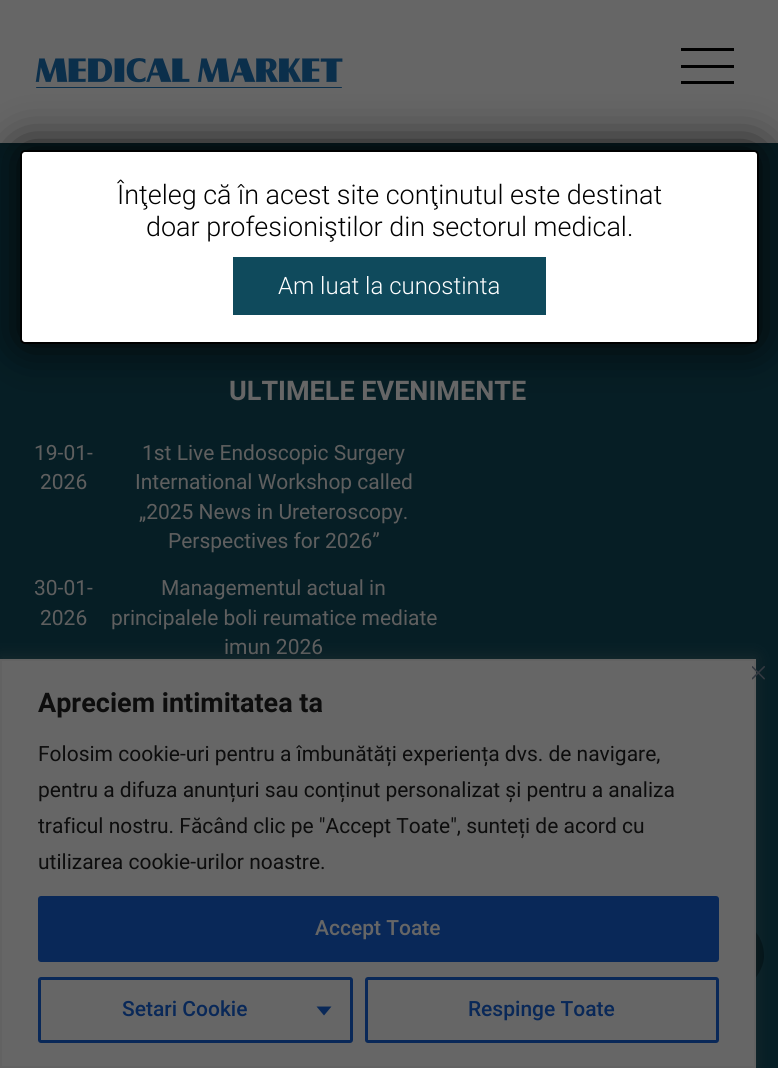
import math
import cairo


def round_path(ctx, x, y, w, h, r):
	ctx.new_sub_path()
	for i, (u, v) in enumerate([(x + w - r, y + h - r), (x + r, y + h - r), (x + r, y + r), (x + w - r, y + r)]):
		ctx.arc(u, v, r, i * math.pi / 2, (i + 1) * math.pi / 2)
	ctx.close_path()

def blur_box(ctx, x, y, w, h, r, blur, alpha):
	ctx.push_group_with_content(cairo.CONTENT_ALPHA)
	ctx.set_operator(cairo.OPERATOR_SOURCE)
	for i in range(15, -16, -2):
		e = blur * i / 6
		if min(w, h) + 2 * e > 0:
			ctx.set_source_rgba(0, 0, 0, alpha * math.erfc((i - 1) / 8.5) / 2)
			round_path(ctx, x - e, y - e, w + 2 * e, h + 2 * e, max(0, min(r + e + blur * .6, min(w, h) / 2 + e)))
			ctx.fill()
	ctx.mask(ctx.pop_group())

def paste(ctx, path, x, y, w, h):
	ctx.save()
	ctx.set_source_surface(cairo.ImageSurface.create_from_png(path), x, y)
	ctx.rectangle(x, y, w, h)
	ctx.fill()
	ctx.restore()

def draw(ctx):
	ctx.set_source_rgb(0.024, 0.118, 0.145)
	ctx.paint()
	ctx.set_source_rgb(0, 0, 0)
	blur_box(ctx, 5, 5, 769, 133, 0, 15, 0.3)
	ctx.set_source_rgb(0.4, 0.4, 0.4)
	ctx.rectangle(0, 0, 778, 143)
	ctx.fill()
	paste(ctx, 'media/1.png', 35, 58, 308, 30)
	ctx.set_source_rgb(0, 0, 0)
	ctx.rectangle(681, 48, 53, 3)
	ctx.rectangle(681, 65, 53, 3)
	ctx.rectangle(681, 81, 53, 3)
	ctx.fill()
	ctx.set_source_rgb(0.008, 0.008, 0.008)
	blur_box(ctx, 20, 150, 739, 194, 5, 22.5, 1)
	ctx.set_source_rgb(1, 1, 1)
	round_path(ctx, 21, 151, 737, 192, 4)
	ctx.fill_preserve()
	ctx.set_source_rgb(0, 0, 0)
	ctx.stroke()
	ctx.select_font_face('Roboto Light')
	ctx.set_font_size(27)
	ctx.move_to(117, 204)
	ctx.show_text('Înţeleg că în acest site conţinutul este destinat')
	ctx.move_to(146, 236)
	ctx.show_text('doar profesioniştilor din sectorul medical.')
	ctx.set_source_rgb(0.059, 0.29, 0.361)
	ctx.rectangle(233, 257, 313, 58)
	ctx.fill()
	ctx.set_font_size(24)
	ctx.set_source_rgb(1, 1, 1)
	ctx.move_to(278, 294)
	ctx.show_text('Am luat la cunostinta')
	ctx.select_font_face('Roboto', cairo.FONT_SLANT_NORMAL, cairo.FONT_WEIGHT_BOLD)
	ctx.set_font_size(27)
	ctx.set_source_rgb(0.4, 0.4, 0.4)
	ctx.move_to(229, 400)
	ctx.show_text('ULTIMELE EVENIMENTE')
	ctx.select_font_face('Roboto')
	ctx.set_font_size(21)
	ctx.set_source_rgb(0.373, 0.373, 0.373)
	for x, y, s in [
		(34, 460, '19-01-'),
		(40, 489, '2026'),
		(142, 460, '1st Live Endoscopic Surgery'),
		(135, 489, 'International Workshop called'),
		(139, 519, '„2025 News in Ureteroscopy.'),
		(168, 548, 'Perspectives for 2026”'),
		(34, 595, '30-01-'),
		(40, 625, '2026'),
		(161, 595, 'Managementul actual in'),
		(111, 625, 'principalele boli reumatice mediate'),
		(224, 654, 'imun 2026'),
	]:
		ctx.move_to(x, y)
		ctx.show_text(s)
	ctx.set_source_rgb(0.004, 0.075, 0.094)
	ctx.new_path()
	ctx.move_to(764, 956)
	ctx.curve_to(764, 921, 722, 906, 699, 929)
	ctx.curve_to(692, 936, 688, 946, 688, 956)
	ctx.curve_to(689, 992, 737, 1007, 757, 976)
	ctx.curve_to(761, 970, 764, 963, 764, 956)
	ctx.close_path()
	ctx.fill()
	ctx.set_source_rgb(0.271, 0.267, 0.267)
	blur_box(ctx, 0, 657, 756, 410, 0, 7.5, 0.3)
	ctx.set_source_rgb(0.4, 0.4, 0.4)
	ctx.rectangle(1, 660, 754, 407)
	ctx.fill_preserve()
	ctx.set_source_rgb(0.384, 0.384, 0.384)
	ctx.stroke()
	paste(ctx, 'media/2.png', 752, 666, 13, 14)
	ctx.select_font_face('Roboto', cairo.FONT_SLANT_NORMAL, cairo.FONT_WEIGHT_BOLD)
	ctx.set_font_size(27)
	ctx.set_source_rgb(0.051, 0.051, 0.051)
	ctx.move_to(38, 712)
	ctx.show_text('Apreciem intimitatea ta')
	ctx.select_font_face('Roboto')
	ctx.set_font_size(21)
	for x, y, s in [
		(38, 761, 'Folosim cookie-uri pentru a îmbunătăți experiența dvs. de navigare,'),
		(38, 797, 'pentru a difuza anunțuri sau conținut personalizat și pentru a analiza'),
		(38, 833, 'traficul nostru. Făcând clic pe "Accept Toate", sunteți de acord cu'),
		(38, 869, 'utilizarea cookie-urilor noastre.'),
	]:
		ctx.move_to(x, y)
		ctx.show_text(s)
	ctx.set_source_rgb(0.039, 0.157, 0.345)
	round_path(ctx, 39.5, 897.5, 678, 63, 1.5)
	ctx.fill_preserve()
	ctx.set_line_width(3)
	ctx.stroke()
	ctx.select_font_face('Roboto Medium')
	ctx.set_source_rgb(0.4, 0.4, 0.4)
	ctx.move_to(315, 935)
	ctx.show_text('Accept Toate')
	round_path(ctx, 39.5, 978.5, 312, 63, 1.5)
	ctx.set_source_rgb(0.039, 0.157, 0.345)
	ctx.stroke()
	ctx.move_to(122, 1016)
	ctx.show_text('Setari Cookie')
	ctx.new_path()
	ctx.move_to(316.5, 1006.5)
	ctx.line_to(331.5, 1006.5)
	ctx.line_to(324, 1015.5)
	ctx.close_path()
	ctx.fill()
	round_path(ctx, 366.5, 978.5, 351, 63, 1.5)
	ctx.stroke()
	ctx.move_to(468, 1016)
	ctx.show_text('Respinge Toate')


surface = cairo.ImageSurface(cairo.FORMAT_RGB24, 778, 1068)
ctx = cairo.Context(surface)
options = cairo.FontOptions()
options.set_hint_metrics(cairo.HINT_METRICS_OFF)
options.set_hint_style(cairo.HINT_STYLE_NONE)
ctx.set_font_options(options)
ctx.set_miter_limit(4)
draw(ctx)
surface.write_to_png('image.png')
